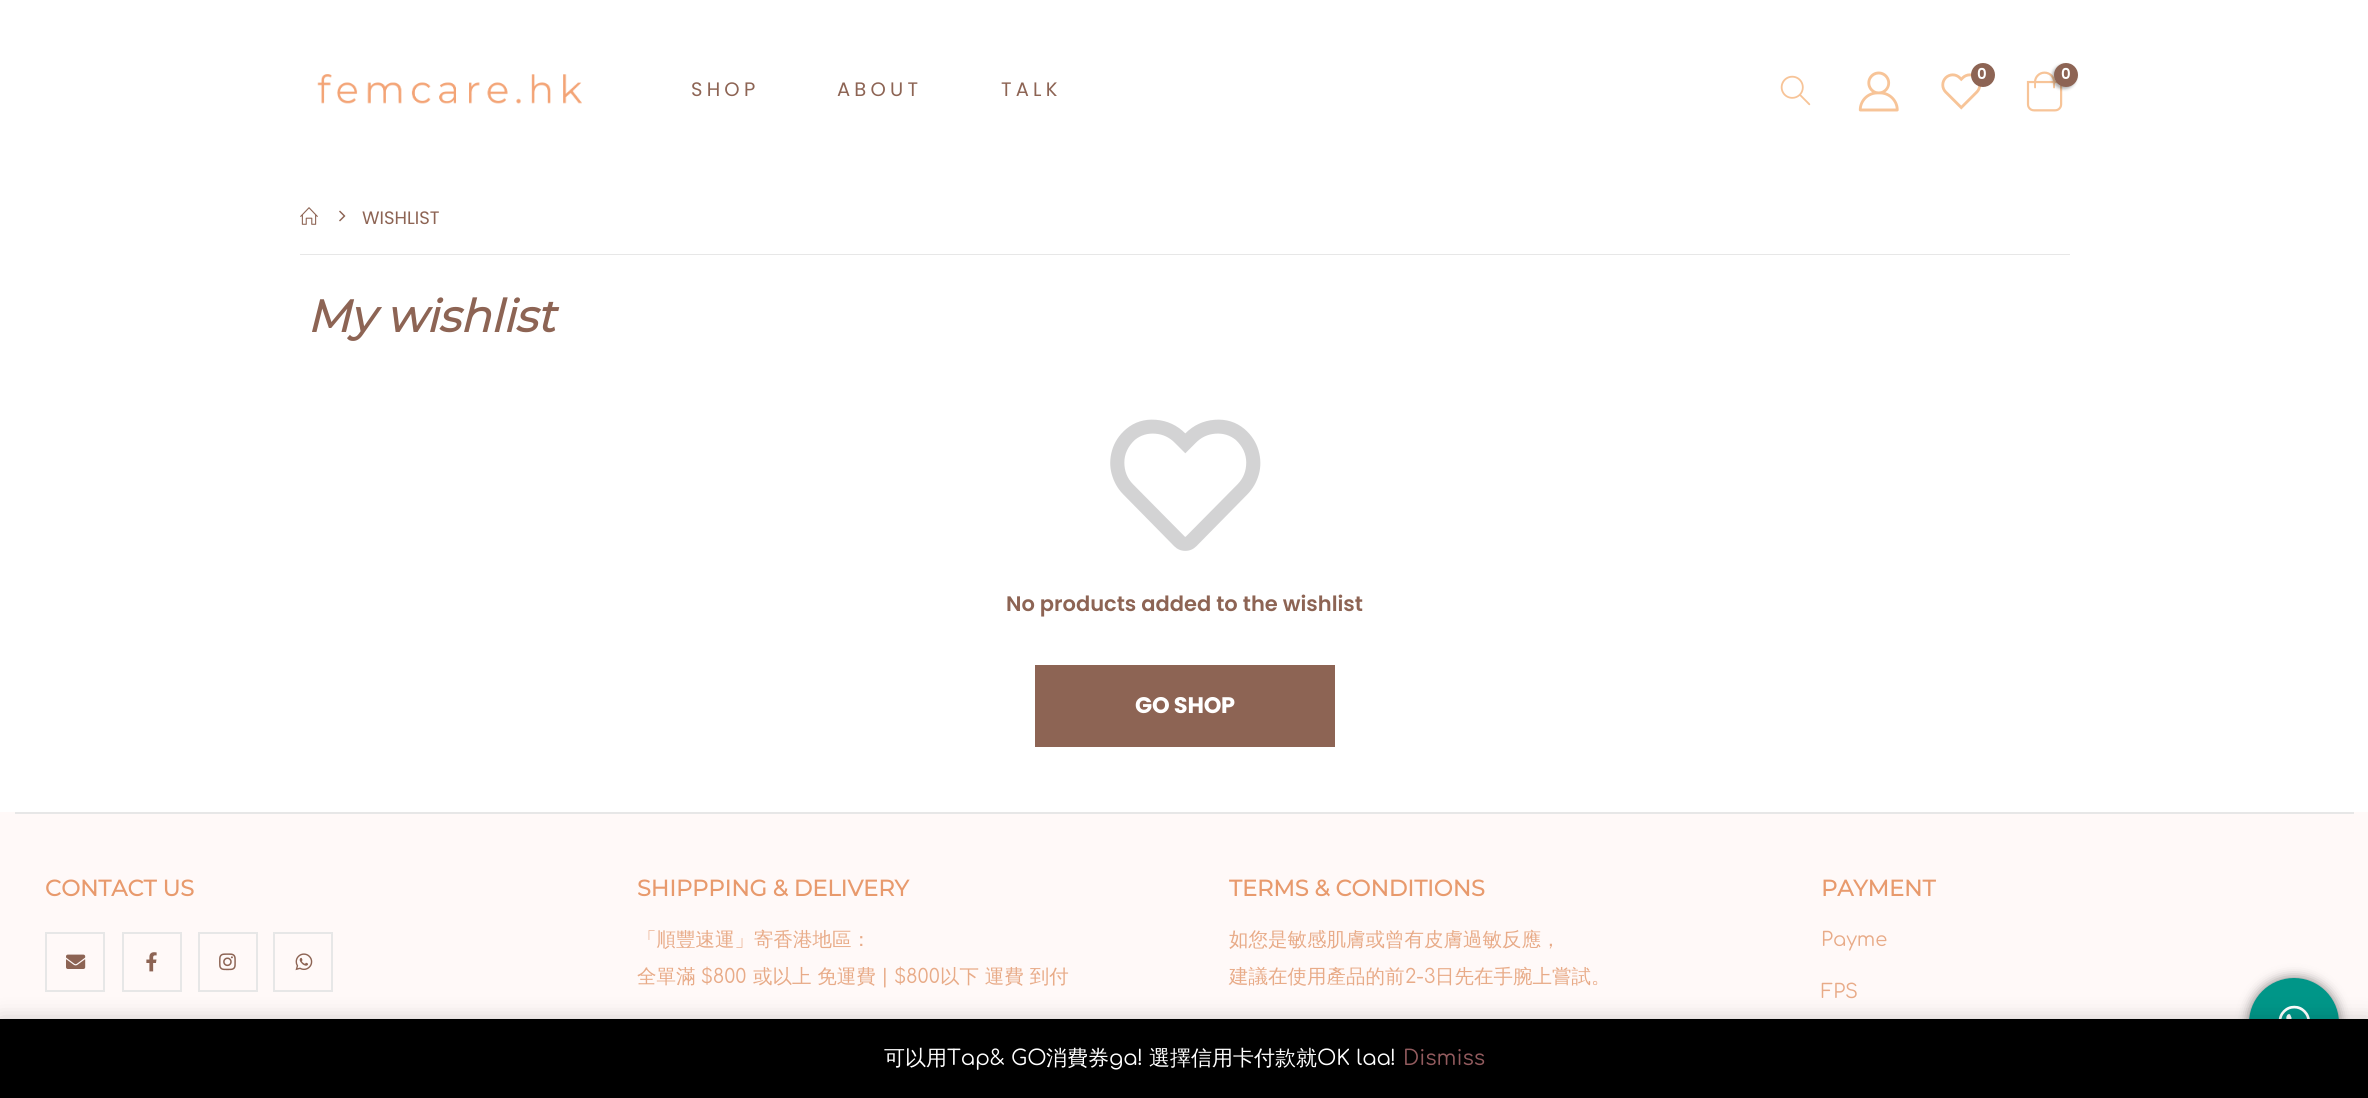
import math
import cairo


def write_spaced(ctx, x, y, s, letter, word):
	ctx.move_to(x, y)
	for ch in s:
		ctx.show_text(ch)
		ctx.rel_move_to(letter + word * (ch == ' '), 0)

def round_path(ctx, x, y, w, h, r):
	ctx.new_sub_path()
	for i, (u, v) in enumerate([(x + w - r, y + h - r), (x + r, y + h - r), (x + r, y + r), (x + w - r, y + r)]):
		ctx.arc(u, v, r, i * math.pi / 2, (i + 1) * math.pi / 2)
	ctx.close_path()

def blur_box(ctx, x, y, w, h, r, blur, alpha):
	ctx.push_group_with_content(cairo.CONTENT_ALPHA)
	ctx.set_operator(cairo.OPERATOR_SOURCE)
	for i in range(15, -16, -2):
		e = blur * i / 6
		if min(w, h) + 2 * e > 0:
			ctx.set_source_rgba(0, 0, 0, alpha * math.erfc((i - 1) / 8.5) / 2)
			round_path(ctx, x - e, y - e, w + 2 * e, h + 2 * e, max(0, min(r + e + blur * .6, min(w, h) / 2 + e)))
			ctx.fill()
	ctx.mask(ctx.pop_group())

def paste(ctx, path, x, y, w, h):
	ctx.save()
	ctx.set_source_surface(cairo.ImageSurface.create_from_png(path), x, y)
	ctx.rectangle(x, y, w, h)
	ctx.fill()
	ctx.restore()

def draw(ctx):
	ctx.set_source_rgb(1, 1, 1)
	ctx.paint()
	paste(ctx, 'media/1.png', 1780, 75, 31, 31)
	paste(ctx, 'media/2.png', 1858, 71, 41, 41)
	paste(ctx, 'media/3.png', 1941, 73, 40, 37)
	ctx.set_source_rgb(0.553, 0.392, 0.329)
	ctx.arc(1983, 75, 12, 0, 2 * math.pi)
	ctx.fill()
	ctx.select_font_face('Poppins SemiBold')
	ctx.set_font_size(15)
	ctx.set_source_rgb(1, 1, 1)
	ctx.move_to(1977, 79)
	ctx.show_text('0')
	paste(ctx, 'media/4.png', 2026, 71, 37, 41)
	ctx.set_source_rgb(0, 0, 0)
	blur_box(ctx, 2052, 65, 24, 24, 12, 1.5, 0.3)
	ctx.set_source_rgb(0.553, 0.392, 0.329)
	ctx.arc(2066, 75, 12, 0, 2 * math.pi)
	ctx.fill()
	ctx.set_source_rgb(1, 1, 1)
	ctx.move_to(2061, 79)
	ctx.show_text('0')
	paste(ctx, 'media/5.png', 317, 74, 265, 30)
	ctx.select_font_face('Poppins')
	ctx.set_font_size(19.5)
	ctx.set_source_rgb(0.553, 0.392, 0.329)
	for x, y, s in [
		(691, 96, 'S H O P'),
		(837, 96, 'A B O U T'),
		(1001, 96, 'T A L K'),
	]:
		write_spaced(ctx, x, y, s, -0.5, 0)
	paste(ctx, 'media/6.png', 300, 207, 18, 18)
	paste(ctx, 'media/7.png', 339, 210, 7, 12)
	ctx.set_font_size(18)
	ctx.move_to(362, 224)
	ctx.show_text('WISHLIST')
	ctx.set_source_rgb(0.906, 0.906, 0.906)
	ctx.rectangle(300, 254, 1770, 1)
	ctx.fill()
	ctx.select_font_face('Montserrat', cairo.FONT_SLANT_ITALIC, cairo.FONT_WEIGHT_BOLD)
	ctx.set_font_size(45)
	ctx.set_source_rgb(0.553, 0.392, 0.329)
	ctx.move_to(307, 332)
	ctx.show_text('My wishlist')
	paste(ctx, 'media/8.png', 1110, 419, 151, 132)
	ctx.select_font_face('Poppins SemiBold')
	ctx.set_font_size(21)
	ctx.move_to(1006, 611)
	ctx.show_text('No products added to the wishlist')
	ctx.rectangle(1035, 665, 300, 82)
	ctx.fill()
	ctx.select_font_face('Poppins', cairo.FONT_SLANT_NORMAL, cairo.FONT_WEIGHT_BOLD)
	ctx.set_font_size(22.5)
	ctx.set_source_rgb(1, 1, 1)
	write_spaced(ctx, 1135, 713, 'GO SHOP', -0.25, 0)
	ctx.set_source_rgb(1, 0.976, 0.969)
	ctx.rectangle(0, 812, 2368, 207)
	ctx.fill()
	ctx.set_source_rgb(0.906, 0.906, 0.906)
	ctx.rectangle(15, 812, 2339, 2)
	ctx.fill()
	ctx.select_font_face('Montserrat', cairo.FONT_SLANT_NORMAL, cairo.FONT_WEIGHT_BOLD)
	ctx.set_source_rgb(0.91, 0.604, 0.427)
	ctx.move_to(45, 896)
	ctx.show_text('CONTACT US')
	ctx.rectangle(46, 933, 58, 58)
	ctx.set_source_rgb(0.906, 0.906, 0.906)
	ctx.stroke()
	paste(ctx, 'media/9.png', 66, 954, 20, 15)
	ctx.rectangle(123, 933, 58, 58)
	ctx.stroke()
	paste(ctx, 'media/10.png', 146, 952, 11, 20)
	ctx.rectangle(199, 933, 58, 58)
	ctx.stroke()
	paste(ctx, 'media/11.png', 219, 953, 17, 18)
	ctx.rectangle(274, 933, 58, 58)
	ctx.stroke()
	paste(ctx, 'media/12.png', 295, 953, 18, 18)
	ctx.set_source_rgb(0.91, 0.604, 0.427)
	ctx.move_to(637, 896)
	ctx.show_text('SHIPPPING & DELIVERY')
	ctx.select_font_face('WenQuanYi Zen Hei Medium')
	ctx.set_font_size(19.5)
	ctx.set_source_rgb(0.91, 0.671, 0.533)
	ctx.move_to(637, 946)
	ctx.show_text('「順豐速運」寄香港地區：')
	ctx.move_to(637, 983)
	ctx.show_text('全單滿')
	ctx.select_font_face('Comfortaa')
	ctx.move_to(701, 983)
	ctx.show_text('$800')
	ctx.select_font_face('WenQuanYi Zen Hei Medium')
	ctx.move_to(753, 983)
	ctx.show_text('或以上 免運費')
	ctx.select_font_face('Comfortaa')
	ctx.move_to(881, 983)
	ctx.show_text('| $800')
	ctx.select_font_face('WenQuanYi Zen Hei Medium')
	ctx.move_to(940, 983)
	ctx.show_text('以下 運費 到付')
	ctx.select_font_face('Montserrat', cairo.FONT_SLANT_NORMAL, cairo.FONT_WEIGHT_BOLD)
	ctx.set_font_size(22.5)
	ctx.set_source_rgb(0.91, 0.604, 0.427)
	ctx.move_to(1229, 896)
	ctx.show_text('TERMS & CONDITIONS')
	ctx.select_font_face('WenQuanYi Zen Hei Medium')
	ctx.set_font_size(19.5)
	ctx.set_source_rgb(0.91, 0.671, 0.533)
	ctx.move_to(1229, 946)
	ctx.show_text('如您是敏感肌膚或曾有皮膚過敏反應，')
	ctx.move_to(1229, 983)
	ctx.show_text('建議在使用產品的前')
	ctx.select_font_face('Comfortaa')
	ctx.move_to(1405, 983)
	ctx.show_text('2-3')
	ctx.select_font_face('WenQuanYi Zen Hei Medium')
	ctx.move_to(1435, 983)
	ctx.show_text('日先在手腕上嘗試。')
	ctx.select_font_face('Montserrat', cairo.FONT_SLANT_NORMAL, cairo.FONT_WEIGHT_BOLD)
	ctx.set_font_size(22.5)
	ctx.set_source_rgb(0.91, 0.604, 0.427)
	ctx.move_to(1821, 896)
	ctx.show_text('PAYMENT')
	ctx.select_font_face('Comfortaa')
	ctx.set_font_size(19.5)
	ctx.set_source_rgb(0.91, 0.671, 0.533)
	ctx.move_to(1821, 946)
	ctx.show_text('Payme')
	ctx.move_to(1821, 998)
	ctx.show_text('FPS')
	ctx.set_source_rgb(0, 0, 0)
	blur_box(ctx, 2249, 978, 90, 90, 45, 6, 0.5)
	ctx.set_source_rgb(0, 0.588, 0.533)
	ctx.arc(2294, 1023, 45, 0, 2 * math.pi)
	ctx.fill()
	paste(ctx, 'media/13.png', 2278, 1005, 32, 14)
	ctx.set_source_rgb(0, 0, 0)
	blur_box(ctx, 0, 1020, 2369, 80, 0, 10.5, 0.2)
	ctx.set_source_rgb(0, 0, 0)
	ctx.rectangle(0, 1019, 2368, 79)
	ctx.fill()
	ctx.select_font_face('WenQuanYi Zen Hei Medium')
	ctx.set_font_size(21)
	ctx.set_source_rgb(1, 1, 1)
	ctx.move_to(884, 1065)
	ctx.show_text('可以用')
	ctx.select_font_face('Comfortaa')
	ctx.move_to(947, 1065)
	ctx.show_text('Tap& GO')
	ctx.select_font_face('WenQuanYi Zen Hei Medium')
	ctx.move_to(1046, 1065)
	ctx.show_text('消費券')
	ctx.select_font_face('Comfortaa')
	ctx.move_to(1109, 1065)
	ctx.show_text('ga!')
	ctx.select_font_face('WenQuanYi Zen Hei Medium')
	ctx.move_to(1149, 1065)
	ctx.show_text('選擇信用卡付款就')
	ctx.select_font_face('Comfortaa')
	ctx.move_to(1317, 1065)
	ctx.show_text('OK laa!')
	ctx.set_source_rgb(0.576, 0.357, 0.369)
	ctx.move_to(1403, 1065)
	ctx.show_text('Dismiss')


surface = cairo.ImageSurface(cairo.FORMAT_RGB24, 2368, 1098)
ctx = cairo.Context(surface)
options = cairo.FontOptions()
options.set_hint_metrics(cairo.HINT_METRICS_OFF)
options.set_hint_style(cairo.HINT_STYLE_NONE)
ctx.set_font_options(options)
ctx.set_miter_limit(4)
draw(ctx)
surface.write_to_png('image.png')
